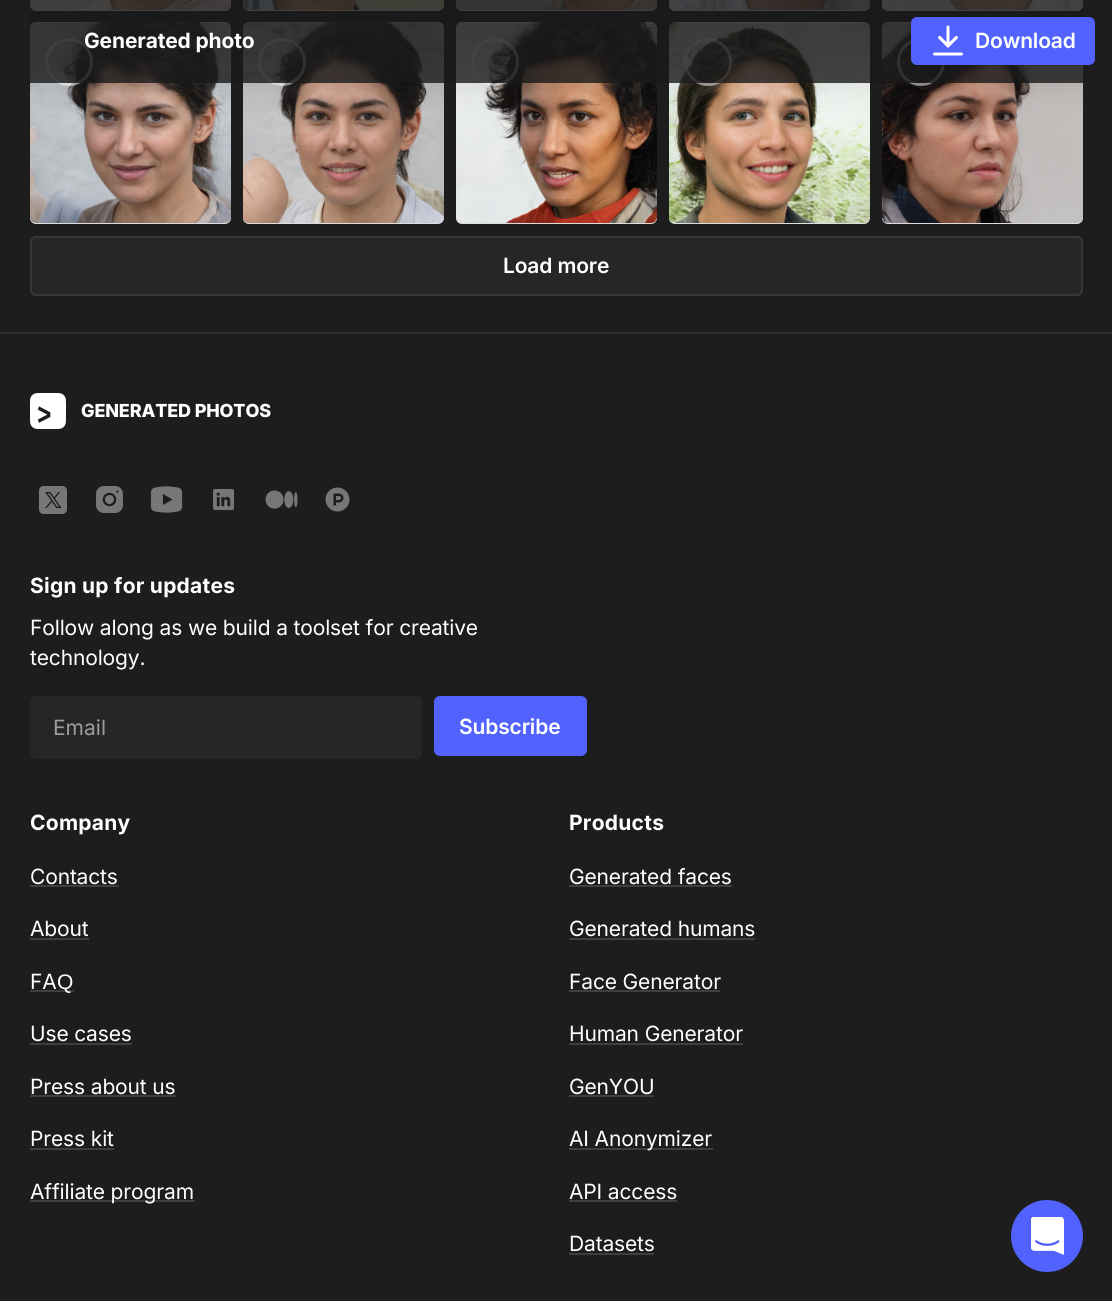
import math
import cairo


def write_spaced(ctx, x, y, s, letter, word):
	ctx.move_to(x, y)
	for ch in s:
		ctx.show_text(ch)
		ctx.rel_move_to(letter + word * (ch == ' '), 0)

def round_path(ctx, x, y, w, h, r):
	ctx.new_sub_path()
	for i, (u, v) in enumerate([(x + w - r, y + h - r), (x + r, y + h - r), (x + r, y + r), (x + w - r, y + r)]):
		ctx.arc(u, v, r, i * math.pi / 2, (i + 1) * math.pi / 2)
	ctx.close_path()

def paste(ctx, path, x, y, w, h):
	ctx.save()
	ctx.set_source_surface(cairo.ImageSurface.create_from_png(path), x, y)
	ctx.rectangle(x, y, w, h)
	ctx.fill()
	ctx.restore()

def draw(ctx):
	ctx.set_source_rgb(0.114, 0.114, 0.114)
	ctx.paint()
	ctx.set_source_rgb(0.867, 0.867, 0.867)
	round_path(ctx, 30, -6, 201, 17, 6)
	ctx.fill()
	paste(ctx, 'media/2.png', 30, 0, 201, 10)
	round_path(ctx, 243, -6, 201, 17, 6)
	ctx.fill()
	paste(ctx, 'media/3.png', 243, 0, 201, 10)
	round_path(ctx, 456, -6, 201, 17, 6)
	ctx.fill()
	paste(ctx, 'media/4.png', 456, 0, 201, 10)
	round_path(ctx, 669, -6, 201, 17, 6)
	ctx.fill()
	paste(ctx, 'media/5.png', 669, 0, 201, 10)
	round_path(ctx, 882, -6, 201, 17, 6)
	ctx.fill()
	paste(ctx, 'media/6.png', 882, 0, 201, 10)
	round_path(ctx, 30, 23, 201, 201, 6)
	ctx.fill()
	paste(ctx, 'media/7.png', 30, 22, 201, 201)
	gradient = cairo.LinearGradient(131, 22, 131, 123)
	gradient.add_color_stop_rgba(0, 0.114, 0.114, 0.114, 0.2)
	gradient.add_color_stop_rgba(0.07, 0.114, 0.114, 0.114, 0.2)
	gradient.add_color_stop_rgba(0.13, 0.114, 0.114, 0.114, 0.19)
	gradient.add_color_stop_rgba(0.2, 0.114, 0.114, 0.114, 0.18)
	gradient.add_color_stop_rgba(0.27, 0.114, 0.114, 0.114, 0.17)
	gradient.add_color_stop_rgba(0.33, 0.114, 0.114, 0.114, 0.15)
	gradient.add_color_stop_rgba(0.4, 0.114, 0.114, 0.114, 0.13)
	gradient.add_color_stop_rgba(0.47, 0.114, 0.114, 0.114, 0.11)
	gradient.add_color_stop_rgba(0.53, 0.114, 0.114, 0.114, 0.09)
	gradient.add_color_stop_rgba(0.6, 0.114, 0.114, 0.114, 0.07)
	gradient.add_color_stop_rgba(0.67, 0.114, 0.114, 0.114, 0.05)
	gradient.add_color_stop_rgba(0.73, 0.114, 0.114, 0.114, 0.03)
	gradient.add_color_stop_rgba(0.8, 0.114, 0.114, 0.114, 0.02)
	gradient.add_color_stop_rgba(0.87, 0.114, 0.114, 0.114, 0.01)
	gradient.add_color_stop_rgba(0.93, 0.114, 0.114, 0.114, 0)
	gradient.add_color_stop_rgba(1, 0.114, 0.114, 0.114, 0)
	ctx.set_source(gradient)
	ctx.new_path()
	ctx.move_to(36, 23)
	ctx.line_to(225, 23)
	ctx.curve_to(228.5, 23, 231, 25.5, 231, 29)
	ctx.line_to(231, 123)
	ctx.line_to(30, 123)
	ctx.line_to(30, 29)
	ctx.curve_to(30, 25.5, 32.5, 23, 36, 23)
	ctx.close_path()
	ctx.fill()
	ctx.arc(69, 62, 22.5, 0, 2 * math.pi)
	ctx.set_source_rgba(1, 1, 1, 0.5)
	ctx.set_line_width(3)
	ctx.stroke()
	ctx.set_source_rgb(0.867, 0.867, 0.867)
	round_path(ctx, 243, 23, 201, 201, 6)
	ctx.fill()
	paste(ctx, 'media/8.png', 243, 22, 201, 201)
	gradient = cairo.LinearGradient(344, 22, 344, 123)
	gradient.add_color_stop_rgba(0, 0.114, 0.114, 0.114, 0.2)
	gradient.add_color_stop_rgba(0.07, 0.114, 0.114, 0.114, 0.2)
	gradient.add_color_stop_rgba(0.13, 0.114, 0.114, 0.114, 0.19)
	gradient.add_color_stop_rgba(0.2, 0.114, 0.114, 0.114, 0.18)
	gradient.add_color_stop_rgba(0.27, 0.114, 0.114, 0.114, 0.17)
	gradient.add_color_stop_rgba(0.33, 0.114, 0.114, 0.114, 0.15)
	gradient.add_color_stop_rgba(0.4, 0.114, 0.114, 0.114, 0.13)
	gradient.add_color_stop_rgba(0.47, 0.114, 0.114, 0.114, 0.11)
	gradient.add_color_stop_rgba(0.53, 0.114, 0.114, 0.114, 0.09)
	gradient.add_color_stop_rgba(0.6, 0.114, 0.114, 0.114, 0.07)
	gradient.add_color_stop_rgba(0.67, 0.114, 0.114, 0.114, 0.05)
	gradient.add_color_stop_rgba(0.73, 0.114, 0.114, 0.114, 0.03)
	gradient.add_color_stop_rgba(0.8, 0.114, 0.114, 0.114, 0.02)
	gradient.add_color_stop_rgba(0.87, 0.114, 0.114, 0.114, 0.01)
	gradient.add_color_stop_rgba(0.93, 0.114, 0.114, 0.114, 0)
	gradient.add_color_stop_rgba(1, 0.114, 0.114, 0.114, 0)
	ctx.set_source(gradient)
	ctx.new_path()
	ctx.move_to(249, 23)
	ctx.line_to(438, 23)
	ctx.curve_to(441.5, 23, 444, 25.5, 444, 29)
	ctx.line_to(444, 123)
	ctx.line_to(243, 123)
	ctx.line_to(243, 29)
	ctx.curve_to(243, 25.5, 245.5, 23, 249, 23)
	ctx.close_path()
	ctx.fill()
	ctx.arc(282, 62, 22.5, 0, 2 * math.pi)
	ctx.set_source_rgba(1, 1, 1, 0.5)
	ctx.stroke()
	ctx.set_source_rgb(0.867, 0.867, 0.867)
	round_path(ctx, 456, 23, 201, 201, 6)
	ctx.fill()
	paste(ctx, 'media/9.png', 456, 22, 201, 201)
	gradient = cairo.LinearGradient(557, 22, 557, 123)
	gradient.add_color_stop_rgba(0, 0.114, 0.114, 0.114, 0.2)
	gradient.add_color_stop_rgba(0.07, 0.114, 0.114, 0.114, 0.2)
	gradient.add_color_stop_rgba(0.13, 0.114, 0.114, 0.114, 0.19)
	gradient.add_color_stop_rgba(0.2, 0.114, 0.114, 0.114, 0.18)
	gradient.add_color_stop_rgba(0.27, 0.114, 0.114, 0.114, 0.17)
	gradient.add_color_stop_rgba(0.33, 0.114, 0.114, 0.114, 0.15)
	gradient.add_color_stop_rgba(0.4, 0.114, 0.114, 0.114, 0.13)
	gradient.add_color_stop_rgba(0.47, 0.114, 0.114, 0.114, 0.11)
	gradient.add_color_stop_rgba(0.53, 0.114, 0.114, 0.114, 0.09)
	gradient.add_color_stop_rgba(0.6, 0.114, 0.114, 0.114, 0.07)
	gradient.add_color_stop_rgba(0.67, 0.114, 0.114, 0.114, 0.05)
	gradient.add_color_stop_rgba(0.73, 0.114, 0.114, 0.114, 0.03)
	gradient.add_color_stop_rgba(0.8, 0.114, 0.114, 0.114, 0.02)
	gradient.add_color_stop_rgba(0.87, 0.114, 0.114, 0.114, 0.01)
	gradient.add_color_stop_rgba(0.93, 0.114, 0.114, 0.114, 0)
	gradient.add_color_stop_rgba(1, 0.114, 0.114, 0.114, 0)
	ctx.set_source(gradient)
	ctx.new_path()
	ctx.move_to(462, 23)
	ctx.line_to(651, 23)
	ctx.curve_to(654.5, 23, 657, 25.5, 657, 29)
	ctx.line_to(657, 123)
	ctx.line_to(456, 123)
	ctx.line_to(456, 29)
	ctx.curve_to(456, 25.5, 458.5, 23, 462, 23)
	ctx.close_path()
	ctx.fill()
	ctx.arc(495, 62, 22.5, 0, 2 * math.pi)
	ctx.set_source_rgba(1, 1, 1, 0.5)
	ctx.stroke()
	ctx.set_source_rgb(0.867, 0.867, 0.867)
	round_path(ctx, 669, 23, 201, 201, 6)
	ctx.fill()
	paste(ctx, 'media/10.png', 669, 22, 201, 201)
	gradient = cairo.LinearGradient(770, 22, 770, 123)
	gradient.add_color_stop_rgba(0, 0.114, 0.114, 0.114, 0.2)
	gradient.add_color_stop_rgba(0.07, 0.114, 0.114, 0.114, 0.2)
	gradient.add_color_stop_rgba(0.13, 0.114, 0.114, 0.114, 0.19)
	gradient.add_color_stop_rgba(0.2, 0.114, 0.114, 0.114, 0.18)
	gradient.add_color_stop_rgba(0.27, 0.114, 0.114, 0.114, 0.17)
	gradient.add_color_stop_rgba(0.33, 0.114, 0.114, 0.114, 0.15)
	gradient.add_color_stop_rgba(0.4, 0.114, 0.114, 0.114, 0.13)
	gradient.add_color_stop_rgba(0.47, 0.114, 0.114, 0.114, 0.11)
	gradient.add_color_stop_rgba(0.53, 0.114, 0.114, 0.114, 0.09)
	gradient.add_color_stop_rgba(0.6, 0.114, 0.114, 0.114, 0.07)
	gradient.add_color_stop_rgba(0.67, 0.114, 0.114, 0.114, 0.05)
	gradient.add_color_stop_rgba(0.73, 0.114, 0.114, 0.114, 0.03)
	gradient.add_color_stop_rgba(0.8, 0.114, 0.114, 0.114, 0.02)
	gradient.add_color_stop_rgba(0.87, 0.114, 0.114, 0.114, 0.01)
	gradient.add_color_stop_rgba(0.93, 0.114, 0.114, 0.114, 0)
	gradient.add_color_stop_rgba(1, 0.114, 0.114, 0.114, 0)
	ctx.set_source(gradient)
	ctx.new_path()
	ctx.move_to(675, 23)
	ctx.line_to(864, 23)
	ctx.curve_to(867.5, 23, 870, 25.5, 870, 29)
	ctx.line_to(870, 123)
	ctx.line_to(669, 123)
	ctx.line_to(669, 29)
	ctx.curve_to(669, 25.5, 671.5, 23, 675, 23)
	ctx.close_path()
	ctx.fill()
	ctx.arc(708, 62, 22.5, 0, 2 * math.pi)
	ctx.set_source_rgba(1, 1, 1, 0.5)
	ctx.stroke()
	ctx.set_source_rgb(0.867, 0.867, 0.867)
	round_path(ctx, 882, 23, 201, 201, 6)
	ctx.fill()
	paste(ctx, 'media/11.png', 882, 22, 201, 201)
	gradient = cairo.LinearGradient(983, 22, 983, 123)
	gradient.add_color_stop_rgba(0, 0.114, 0.114, 0.114, 0.2)
	gradient.add_color_stop_rgba(0.07, 0.114, 0.114, 0.114, 0.2)
	gradient.add_color_stop_rgba(0.13, 0.114, 0.114, 0.114, 0.19)
	gradient.add_color_stop_rgba(0.2, 0.114, 0.114, 0.114, 0.18)
	gradient.add_color_stop_rgba(0.27, 0.114, 0.114, 0.114, 0.17)
	gradient.add_color_stop_rgba(0.33, 0.114, 0.114, 0.114, 0.15)
	gradient.add_color_stop_rgba(0.4, 0.114, 0.114, 0.114, 0.13)
	gradient.add_color_stop_rgba(0.47, 0.114, 0.114, 0.114, 0.11)
	gradient.add_color_stop_rgba(0.53, 0.114, 0.114, 0.114, 0.09)
	gradient.add_color_stop_rgba(0.6, 0.114, 0.114, 0.114, 0.07)
	gradient.add_color_stop_rgba(0.67, 0.114, 0.114, 0.114, 0.05)
	gradient.add_color_stop_rgba(0.73, 0.114, 0.114, 0.114, 0.03)
	gradient.add_color_stop_rgba(0.8, 0.114, 0.114, 0.114, 0.02)
	gradient.add_color_stop_rgba(0.87, 0.114, 0.114, 0.114, 0.01)
	gradient.add_color_stop_rgba(0.93, 0.114, 0.114, 0.114, 0)
	gradient.add_color_stop_rgba(1, 0.114, 0.114, 0.114, 0)
	ctx.set_source(gradient)
	ctx.new_path()
	ctx.move_to(888, 23)
	ctx.line_to(1077, 23)
	ctx.curve_to(1080.5, 23, 1083, 25.5, 1083, 29)
	ctx.line_to(1083, 123)
	ctx.line_to(882, 123)
	ctx.line_to(882, 29)
	ctx.curve_to(882, 25.5, 884.5, 23, 888, 23)
	ctx.close_path()
	ctx.fill()
	ctx.arc(921, 62, 22.5, 0, 2 * math.pi)
	ctx.set_source_rgba(1, 1, 1, 0.5)
	ctx.stroke()
	ctx.set_source_rgba(0.102, 0.102, 0.102, 0.8)
	ctx.rectangle(30, 0, 1053, 83)
	ctx.fill()
	ctx.select_font_face('Inter', cairo.FONT_SLANT_NORMAL, cairo.FONT_WEIGHT_BOLD)
	ctx.set_font_size(21)
	ctx.set_source_rgb(1, 1, 1)
	write_spaced(ctx, 84, 48, 'Generated photo', -0.15, 0)
	ctx.set_source_rgb(0.318, 0.384, 1)
	round_path(ctx, 912, 18, 182, 46, 5)
	ctx.fill_preserve()
	ctx.set_line_width(2)
	ctx.stroke()
	paste(ctx, 'media/1.png', 933, 25, 30, 31)
	ctx.select_font_face('Inter SemiBold')
	ctx.set_source_rgb(1, 1, 1)
	write_spaced(ctx, 975, 48, 'Download', -0.15, 0)
	ctx.set_source_rgb(0.149, 0.149, 0.149)
	round_path(ctx, 31, 237, 1051, 58, 5)
	ctx.fill_preserve()
	ctx.set_source_rgb(0.216, 0.216, 0.216)
	ctx.stroke()
	ctx.set_source_rgb(1, 1, 1)
	write_spaced(ctx, 503, 273, 'Load more', -0.15, 0)
	ctx.set_source_rgb(0.184, 0.184, 0.184)
	ctx.rectangle(0, 332, 1112, 2)
	ctx.fill()
	paste(ctx, 'media/12.png', 30, 393, 36, 36)
	ctx.select_font_face('Inter ExtraBold')
	ctx.set_font_size(18)
	ctx.set_source_rgb(1, 1, 1)
	write_spaced(ctx, 81, 417, 'GENERATED PHOTOS', -0.15, 0)
	paste(ctx, 'media/13.png', 39, 486, 28, 28)
	paste(ctx, 'media/14.png', 96, 486, 27, 27)
	paste(ctx, 'media/15.png', 150, 486, 33, 27)
	paste(ctx, 'media/16.png', 213, 489, 21, 21)
	paste(ctx, 'media/17.png', 265, 490, 33, 19)
	paste(ctx, 'media/18.png', 325, 487, 25, 25)
	ctx.select_font_face('Inter', cairo.FONT_SLANT_NORMAL, cairo.FONT_WEIGHT_BOLD)
	ctx.set_font_size(21)
	write_spaced(ctx, 30, 593, 'Sign up for updates', 0.25, 0)
	ctx.select_font_face('Inter')
	write_spaced(ctx, 30, 635, 'Follow along as we build a toolset for creative', -0.15, 0)
	write_spaced(ctx, 30, 665, 'technology.', -0.15, 0)
	ctx.set_source_rgb(0.149, 0.149, 0.149)
	round_path(ctx, 30, 696, 392, 63, 6)
	ctx.fill()
	ctx.set_source_rgb(0.616, 0.616, 0.616)
	ctx.move_to(53, 735)
	ctx.show_text('Email')
	ctx.set_source_rgb(0.318, 0.384, 1)
	round_path(ctx, 435, 697, 151, 58, 5)
	ctx.fill_preserve()
	ctx.stroke()
	ctx.select_font_face('Inter SemiBold')
	ctx.set_source_rgb(1, 1, 1)
	write_spaced(ctx, 459, 734, 'Subscribe', -0.15, 0)
	ctx.select_font_face('Inter', cairo.FONT_SLANT_NORMAL, cairo.FONT_WEIGHT_BOLD)
	write_spaced(ctx, 30, 830, 'Company', 0.25, 0)
	ctx.select_font_face('Inter')
	write_spaced(ctx, 30, 884, 'Contacts', -0.15, 0)
	ctx.set_source_rgb(0.247, 0.247, 0.247)
	ctx.rectangle(30, 885, 89, 2)
	ctx.fill()
	ctx.set_source_rgb(1, 1, 1)
	write_spaced(ctx, 30, 936, 'About', -0.15, 0)
	ctx.set_source_rgb(0.247, 0.247, 0.247)
	ctx.rectangle(30, 938, 59, 2)
	ctx.fill()
	ctx.set_source_rgb(1, 1, 1)
	write_spaced(ctx, 30, 989, 'FA', -0.15, 0)
	ctx.set_source_rgb(0.247, 0.247, 0.247)
	ctx.rectangle(30, 990, 44, 2)
	ctx.fill()
	ctx.select_font_face('Liberation Sans')
	ctx.set_source_rgb(1, 1, 1)
	write_spaced(ctx, 57, 989, 'Q', -0.15, 0)
	ctx.select_font_face('Inter')
	write_spaced(ctx, 30, 1041, 'Use cases', -0.15, 0)
	ctx.set_source_rgb(0.247, 0.247, 0.247)
	ctx.rectangle(30, 1043, 102, 2)
	ctx.fill()
	ctx.set_source_rgb(1, 1, 1)
	write_spaced(ctx, 30, 1094, 'Press about us', -0.15, 0)
	ctx.set_source_rgb(0.247, 0.247, 0.247)
	ctx.rectangle(30, 1095, 146, 2)
	ctx.fill()
	ctx.set_source_rgb(1, 1, 1)
	write_spaced(ctx, 30, 1146, 'Press kit', -0.15, 0)
	ctx.set_source_rgb(0.247, 0.247, 0.247)
	ctx.rectangle(30, 1148, 84, 2)
	ctx.fill()
	ctx.rectangle(30, 1200, 165, 2)
	ctx.fill()
	ctx.set_source_rgb(1, 1, 1)
	write_spaced(ctx, 30, 1199, 'Affiliate program', -0.15, 0)
	ctx.select_font_face('Inter', cairo.FONT_SLANT_NORMAL, cairo.FONT_WEIGHT_BOLD)
	write_spaced(ctx, 569, 830, 'Products', 0.25, 0)
	ctx.select_font_face('Inter')
	write_spaced(ctx, 569, 884, 'Generated faces', -0.15, 0)
	ctx.set_source_rgb(0.247, 0.247, 0.247)
	ctx.rectangle(569, 885, 163, 2)
	ctx.fill()
	ctx.set_source_rgb(1, 1, 1)
	write_spaced(ctx, 569, 936, 'Generated humans', -0.15, 0)
	ctx.set_source_rgb(0.247, 0.247, 0.247)
	ctx.rectangle(569, 938, 186, 2)
	ctx.fill()
	ctx.set_source_rgb(1, 1, 1)
	write_spaced(ctx, 569, 989, 'Face Generator', -0.15, 0)
	ctx.set_source_rgb(0.247, 0.247, 0.247)
	ctx.rectangle(569, 990, 151, 2)
	ctx.fill()
	ctx.set_source_rgb(1, 1, 1)
	write_spaced(ctx, 569, 1041, 'Human Generator', -0.15, 0)
	ctx.set_source_rgb(0.247, 0.247, 0.247)
	ctx.rectangle(569, 1043, 174, 2)
	ctx.fill()
	ctx.set_source_rgb(1, 1, 1)
	write_spaced(ctx, 569, 1094, 'GenYOU', -0.15, 0)
	ctx.set_source_rgb(0.247, 0.247, 0.247)
	ctx.rectangle(569, 1095, 85, 2)
	ctx.fill()
	ctx.rectangle(569, 1148, 144, 2)
	ctx.fill()
	ctx.set_source_rgb(1, 1, 1)
	write_spaced(ctx, 569, 1146, 'AI Anonymizer', -0.15, 0)
	write_spaced(ctx, 569, 1199, 'API access', -0.15, 0)
	ctx.set_source_rgb(0.247, 0.247, 0.247)
	ctx.rectangle(569, 1200, 108, 2)
	ctx.fill()
	ctx.set_source_rgb(1, 1, 1)
	write_spaced(ctx, 569, 1251, 'Datasets', -0.15, 0)
	ctx.set_source_rgb(0.247, 0.247, 0.247)
	ctx.rectangle(569, 1253, 85, 2)
	ctx.fill()
	ctx.set_source_rgb(0.318, 0.384, 1)
	ctx.arc(1047, 1236, 36, 0, 2 * math.pi)
	ctx.fill()
	paste(ctx, 'media/19.png', 1031, 1217, 33, 38)


surface = cairo.ImageSurface(cairo.FORMAT_RGB24, 1112, 1301)
ctx = cairo.Context(surface)
options = cairo.FontOptions()
options.set_hint_metrics(cairo.HINT_METRICS_OFF)
options.set_hint_style(cairo.HINT_STYLE_NONE)
ctx.set_font_options(options)
ctx.set_miter_limit(4)
draw(ctx)
surface.write_to_png('image.png')
